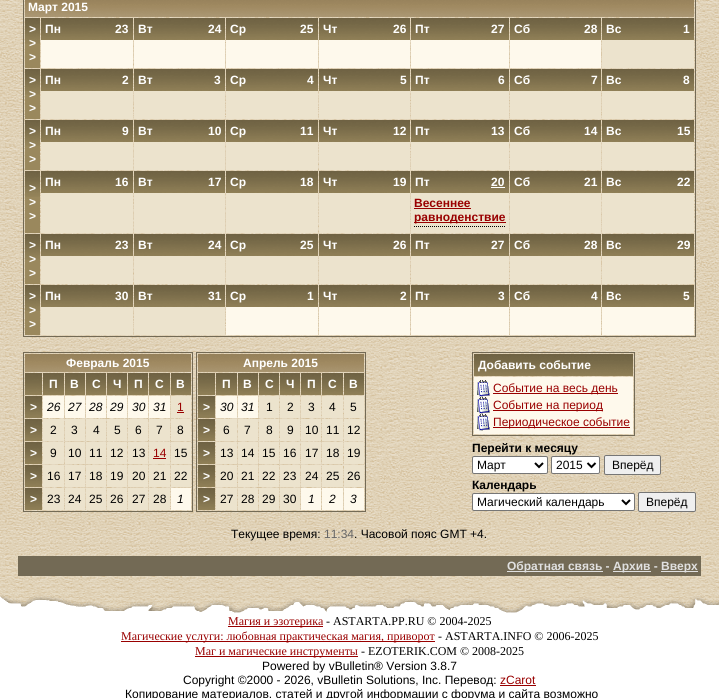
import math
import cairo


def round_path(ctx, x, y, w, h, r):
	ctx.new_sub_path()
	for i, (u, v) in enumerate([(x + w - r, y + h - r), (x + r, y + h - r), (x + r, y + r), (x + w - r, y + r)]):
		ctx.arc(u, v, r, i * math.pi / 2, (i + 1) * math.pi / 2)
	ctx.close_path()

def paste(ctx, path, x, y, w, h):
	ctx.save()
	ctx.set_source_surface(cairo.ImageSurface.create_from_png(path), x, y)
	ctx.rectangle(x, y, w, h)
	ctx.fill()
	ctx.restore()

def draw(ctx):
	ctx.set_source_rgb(1, 1, 1)
	ctx.paint()
	paste(ctx, 'media/1.png', 0, 0, 719, 591)
	ctx.rectangle(23.5, -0.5, 672, 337)
	ctx.set_source_rgb(0.451, 0.416, 0.333)
	ctx.set_line_width(1)
	ctx.stroke()
	paste(ctx, 'media/2.png', 25, 0, 669, 17)
	ctx.select_font_face('Liberation Sans', cairo.FONT_SLANT_NORMAL, cairo.FONT_WEIGHT_BOLD)
	ctx.set_font_size(12)
	ctx.set_source_rgb(1, 1, 1)
	ctx.move_to(28, 11)
	ctx.show_text('Март 2015')
	ctx.set_source_rgb(0.604, 0.533, 0.365)
	ctx.rectangle(25, 44, 15, 24)
	ctx.fill()
	paste(ctx, 'media/3.png', 25, 18, 15, 26)
	ctx.set_source_rgb(1, 1, 1)
	for x, y, s in [
		(29, 33, '>'),
		(29, 47, '>'),
		(29, 61, '>'),
	]:
		ctx.move_to(x, y)
		ctx.show_text(s)
	ctx.set_source_rgb(0.996, 0.973, 0.922)
	ctx.rectangle(41, 40, 92, 28)
	ctx.fill()
	paste(ctx, 'media/4.png', 41, 18, 92, 22)
	ctx.set_source_rgb(1, 1, 1)
	ctx.move_to(45, 33)
	ctx.show_text('Пн')
	ctx.move_to(115, 33)
	ctx.show_text('23')
	ctx.set_source_rgb(0.996, 0.973, 0.922)
	ctx.rectangle(134, 40, 91, 28)
	ctx.fill()
	paste(ctx, 'media/5.png', 134, 18, 91, 22)
	ctx.set_source_rgb(1, 1, 1)
	ctx.move_to(138, 33)
	ctx.show_text('Вт')
	ctx.move_to(208, 33)
	ctx.show_text('24')
	ctx.set_source_rgb(0.996, 0.973, 0.922)
	ctx.rectangle(226, 40, 92, 28)
	ctx.fill()
	paste(ctx, 'media/4.png', 226, 18, 92, 22)
	ctx.set_source_rgb(1, 1, 1)
	ctx.move_to(230, 33)
	ctx.show_text('Ср')
	ctx.move_to(300, 33)
	ctx.show_text('25')
	ctx.set_source_rgb(0.996, 0.973, 0.922)
	ctx.rectangle(319, 40, 91, 28)
	ctx.fill()
	paste(ctx, 'media/6.png', 319, 18, 91, 22)
	ctx.set_source_rgb(1, 1, 1)
	ctx.move_to(323, 33)
	ctx.show_text('Чт')
	ctx.move_to(393, 33)
	ctx.show_text('26')
	ctx.set_source_rgb(0.996, 0.973, 0.922)
	ctx.rectangle(411, 40, 98, 28)
	ctx.fill()
	paste(ctx, 'media/7.png', 411, 18, 98, 22)
	ctx.set_source_rgb(1, 1, 1)
	ctx.move_to(415, 33)
	ctx.show_text('Пт')
	ctx.move_to(491, 33)
	ctx.show_text('27')
	ctx.set_source_rgb(0.996, 0.973, 0.922)
	ctx.rectangle(510, 40, 91, 28)
	ctx.fill()
	paste(ctx, 'media/8.png', 510, 18, 91, 22)
	ctx.set_source_rgb(1, 1, 1)
	ctx.move_to(514, 33)
	ctx.show_text('Сб')
	ctx.move_to(584, 33)
	ctx.show_text('28')
	ctx.set_source_rgb(0.925, 0.89, 0.804)
	ctx.rectangle(602, 40, 92, 28)
	ctx.fill()
	paste(ctx, 'media/4.png', 602, 18, 92, 22)
	ctx.set_source_rgb(1, 1, 1)
	ctx.move_to(606, 33)
	ctx.show_text('Вс')
	ctx.move_to(683, 33)
	ctx.show_text('1')
	ctx.set_source_rgb(0.604, 0.533, 0.365)
	ctx.rectangle(25, 95, 15, 24)
	ctx.fill()
	paste(ctx, 'media/3.png', 25, 69, 15, 26)
	ctx.set_source_rgb(1, 1, 1)
	for x, y, s in [
		(29, 84, '>'),
		(29, 98, '>'),
		(29, 112, '>'),
	]:
		ctx.move_to(x, y)
		ctx.show_text(s)
	ctx.set_source_rgb(0.925, 0.89, 0.804)
	ctx.rectangle(41, 91, 92, 28)
	ctx.fill()
	paste(ctx, 'media/4.png', 41, 69, 92, 22)
	ctx.set_source_rgb(1, 1, 1)
	ctx.move_to(45, 84)
	ctx.show_text('Пн')
	ctx.move_to(122, 84)
	ctx.show_text('2')
	ctx.set_source_rgb(0.925, 0.89, 0.804)
	ctx.rectangle(134, 91, 91, 28)
	ctx.fill()
	paste(ctx, 'media/5.png', 134, 69, 91, 22)
	ctx.set_source_rgb(1, 1, 1)
	ctx.move_to(138, 84)
	ctx.show_text('Вт')
	ctx.move_to(214, 84)
	ctx.show_text('3')
	ctx.set_source_rgb(0.925, 0.89, 0.804)
	ctx.rectangle(226, 91, 92, 28)
	ctx.fill()
	paste(ctx, 'media/4.png', 226, 69, 92, 22)
	ctx.set_source_rgb(1, 1, 1)
	ctx.move_to(230, 84)
	ctx.show_text('Ср')
	ctx.move_to(307, 84)
	ctx.show_text('4')
	ctx.set_source_rgb(0.925, 0.89, 0.804)
	ctx.rectangle(319, 91, 91, 28)
	ctx.fill()
	paste(ctx, 'media/6.png', 319, 69, 91, 22)
	ctx.set_source_rgb(1, 1, 1)
	ctx.move_to(323, 84)
	ctx.show_text('Чт')
	ctx.move_to(400, 84)
	ctx.show_text('5')
	ctx.set_source_rgb(0.925, 0.89, 0.804)
	ctx.rectangle(411, 91, 98, 28)
	ctx.fill()
	paste(ctx, 'media/7.png', 411, 69, 98, 22)
	ctx.set_source_rgb(1, 1, 1)
	ctx.move_to(415, 84)
	ctx.show_text('Пт')
	ctx.move_to(498, 84)
	ctx.show_text('6')
	ctx.set_source_rgb(0.925, 0.89, 0.804)
	ctx.rectangle(510, 91, 91, 28)
	ctx.fill()
	paste(ctx, 'media/8.png', 510, 69, 91, 22)
	ctx.set_source_rgb(1, 1, 1)
	ctx.move_to(514, 84)
	ctx.show_text('Сб')
	ctx.move_to(591, 84)
	ctx.show_text('7')
	ctx.set_source_rgb(0.925, 0.89, 0.804)
	ctx.rectangle(602, 91, 92, 28)
	ctx.fill()
	paste(ctx, 'media/4.png', 602, 69, 92, 22)
	ctx.set_source_rgb(1, 1, 1)
	ctx.move_to(606, 84)
	ctx.show_text('Вс')
	ctx.move_to(683, 84)
	ctx.show_text('8')
	ctx.set_source_rgb(0.604, 0.533, 0.365)
	ctx.rectangle(25, 146, 15, 24)
	ctx.fill()
	paste(ctx, 'media/3.png', 25, 120, 15, 26)
	ctx.set_source_rgb(1, 1, 1)
	for x, y, s in [
		(29, 135, '>'),
		(29, 149, '>'),
		(29, 163, '>'),
	]:
		ctx.move_to(x, y)
		ctx.show_text(s)
	ctx.set_source_rgb(0.925, 0.89, 0.804)
	ctx.rectangle(41, 142, 92, 28)
	ctx.fill()
	paste(ctx, 'media/4.png', 41, 120, 92, 22)
	ctx.set_source_rgb(1, 1, 1)
	ctx.move_to(45, 135)
	ctx.show_text('Пн')
	ctx.move_to(122, 135)
	ctx.show_text('9')
	ctx.set_source_rgb(0.925, 0.89, 0.804)
	ctx.rectangle(134, 142, 91, 28)
	ctx.fill()
	paste(ctx, 'media/5.png', 134, 120, 91, 22)
	ctx.set_source_rgb(1, 1, 1)
	ctx.move_to(138, 135)
	ctx.show_text('Вт')
	ctx.move_to(208, 135)
	ctx.show_text('10')
	ctx.set_source_rgb(0.925, 0.89, 0.804)
	ctx.rectangle(226, 142, 92, 28)
	ctx.fill()
	paste(ctx, 'media/4.png', 226, 120, 92, 22)
	ctx.set_source_rgb(1, 1, 1)
	ctx.move_to(230, 135)
	ctx.show_text('Ср')
	ctx.move_to(300, 135)
	ctx.show_text('11')
	ctx.set_source_rgb(0.925, 0.89, 0.804)
	ctx.rectangle(319, 142, 91, 28)
	ctx.fill()
	paste(ctx, 'media/6.png', 319, 120, 91, 22)
	ctx.set_source_rgb(1, 1, 1)
	ctx.move_to(323, 135)
	ctx.show_text('Чт')
	ctx.move_to(393, 135)
	ctx.show_text('12')
	ctx.set_source_rgb(0.925, 0.89, 0.804)
	ctx.rectangle(411, 142, 98, 28)
	ctx.fill()
	paste(ctx, 'media/7.png', 411, 120, 98, 22)
	ctx.set_source_rgb(1, 1, 1)
	ctx.move_to(415, 135)
	ctx.show_text('Пт')
	ctx.move_to(491, 135)
	ctx.show_text('13')
	ctx.set_source_rgb(0.925, 0.89, 0.804)
	ctx.rectangle(510, 142, 91, 28)
	ctx.fill()
	paste(ctx, 'media/8.png', 510, 120, 91, 22)
	ctx.set_source_rgb(1, 1, 1)
	ctx.move_to(514, 135)
	ctx.show_text('Сб')
	ctx.move_to(584, 135)
	ctx.show_text('14')
	ctx.set_source_rgb(0.925, 0.89, 0.804)
	ctx.rectangle(602, 142, 92, 28)
	ctx.fill()
	paste(ctx, 'media/4.png', 602, 120, 92, 22)
	ctx.set_source_rgb(1, 1, 1)
	ctx.move_to(606, 135)
	ctx.show_text('Вс')
	ctx.move_to(677, 135)
	ctx.show_text('15')
	ctx.set_source_rgb(0.925, 0.89, 0.804)
	ctx.rectangle(41, 193, 92, 40)
	ctx.fill()
	paste(ctx, 'media/4.png', 41, 171, 92, 22)
	ctx.set_source_rgb(1, 1, 1)
	ctx.move_to(45, 186)
	ctx.show_text('Пн')
	ctx.move_to(115, 186)
	ctx.show_text('16')
	ctx.set_source_rgb(0.925, 0.89, 0.804)
	ctx.rectangle(134, 193, 91, 40)
	ctx.fill()
	paste(ctx, 'media/5.png', 134, 171, 91, 22)
	ctx.set_source_rgb(1, 1, 1)
	ctx.move_to(138, 186)
	ctx.show_text('Вт')
	ctx.move_to(208, 186)
	ctx.show_text('17')
	ctx.set_source_rgb(0.925, 0.89, 0.804)
	ctx.rectangle(226, 193, 92, 40)
	ctx.fill()
	paste(ctx, 'media/4.png', 226, 171, 92, 22)
	ctx.set_source_rgb(1, 1, 1)
	ctx.move_to(230, 186)
	ctx.show_text('Ср')
	ctx.move_to(300, 186)
	ctx.show_text('18')
	ctx.set_source_rgb(0.925, 0.89, 0.804)
	ctx.rectangle(319, 193, 91, 40)
	ctx.fill()
	paste(ctx, 'media/6.png', 319, 171, 91, 22)
	ctx.set_source_rgb(1, 1, 1)
	ctx.move_to(323, 186)
	ctx.show_text('Чт')
	ctx.move_to(393, 186)
	ctx.show_text('19')
	ctx.set_source_rgb(0.925, 0.89, 0.804)
	ctx.rectangle(411, 193, 98, 40)
	ctx.fill()
	paste(ctx, 'media/7.png', 411, 171, 98, 22)
	ctx.set_source_rgb(1, 1, 1)
	ctx.move_to(415, 186)
	ctx.show_text('Пт')
	ctx.move_to(491, 186)
	ctx.show_text('20')
	ctx.rectangle(491, 187, 14, 1)
	ctx.fill()
	ctx.new_path()
	ctx.move_to(414, 226.5)
	ctx.line_to(506, 226.5)
	ctx.set_source_rgb(0, 0, 0)
	ctx.set_dash([1, 1])
	ctx.stroke()
	ctx.set_source_rgb(0.6, 0, 0)
	ctx.move_to(414, 207)
	ctx.show_text('Весеннее')
	ctx.rectangle(414, 208, 57, 1)
	ctx.fill()
	ctx.rectangle(414, 222, 92, 1)
	ctx.fill()
	ctx.move_to(414, 221)
	ctx.show_text('равноденствие')
	ctx.set_source_rgb(0.925, 0.89, 0.804)
	ctx.rectangle(510, 193, 91, 40)
	ctx.fill()
	paste(ctx, 'media/8.png', 510, 171, 91, 22)
	ctx.set_source_rgb(1, 1, 1)
	ctx.move_to(514, 186)
	ctx.show_text('Сб')
	ctx.move_to(584, 186)
	ctx.show_text('21')
	ctx.set_source_rgb(0.925, 0.89, 0.804)
	ctx.rectangle(602, 193, 92, 40)
	ctx.fill()
	paste(ctx, 'media/4.png', 602, 171, 92, 22)
	ctx.set_source_rgb(1, 1, 1)
	ctx.move_to(606, 186)
	ctx.show_text('Вс')
	ctx.move_to(677, 186)
	ctx.show_text('22')
	ctx.set_source_rgb(0.604, 0.533, 0.365)
	ctx.rectangle(25, 197, 15, 36)
	ctx.fill()
	paste(ctx, 'media/3.png', 25, 171, 15, 26)
	ctx.set_source_rgb(1, 1, 1)
	for x, y, s in [
		(29, 192, '>'),
		(29, 206, '>'),
		(29, 220, '>'),
	]:
		ctx.move_to(x, y)
		ctx.show_text(s)
	ctx.set_source_rgb(0.604, 0.533, 0.365)
	ctx.rectangle(25, 260, 15, 24)
	ctx.fill()
	paste(ctx, 'media/3.png', 25, 234, 15, 26)
	ctx.set_source_rgb(1, 1, 1)
	for x, y, s in [
		(29, 249, '>'),
		(29, 263, '>'),
		(29, 277, '>'),
	]:
		ctx.move_to(x, y)
		ctx.show_text(s)
	ctx.set_source_rgb(0.925, 0.89, 0.804)
	ctx.rectangle(41, 256, 92, 28)
	ctx.fill()
	paste(ctx, 'media/4.png', 41, 234, 92, 22)
	ctx.set_source_rgb(1, 1, 1)
	ctx.move_to(45, 249)
	ctx.show_text('Пн')
	ctx.move_to(115, 249)
	ctx.show_text('23')
	ctx.set_source_rgb(0.925, 0.89, 0.804)
	ctx.rectangle(134, 256, 91, 28)
	ctx.fill()
	paste(ctx, 'media/5.png', 134, 234, 91, 22)
	ctx.set_source_rgb(1, 1, 1)
	ctx.move_to(138, 249)
	ctx.show_text('Вт')
	ctx.move_to(208, 249)
	ctx.show_text('24')
	ctx.set_source_rgb(0.925, 0.89, 0.804)
	ctx.rectangle(226, 256, 92, 28)
	ctx.fill()
	paste(ctx, 'media/4.png', 226, 234, 92, 22)
	ctx.set_source_rgb(1, 1, 1)
	ctx.move_to(230, 249)
	ctx.show_text('Ср')
	ctx.move_to(300, 249)
	ctx.show_text('25')
	ctx.set_source_rgb(0.925, 0.89, 0.804)
	ctx.rectangle(319, 256, 91, 28)
	ctx.fill()
	paste(ctx, 'media/6.png', 319, 234, 91, 22)
	ctx.set_source_rgb(1, 1, 1)
	ctx.move_to(323, 249)
	ctx.show_text('Чт')
	ctx.move_to(393, 249)
	ctx.show_text('26')
	ctx.set_source_rgb(0.925, 0.89, 0.804)
	ctx.rectangle(411, 256, 98, 28)
	ctx.fill()
	paste(ctx, 'media/7.png', 411, 234, 98, 22)
	ctx.set_source_rgb(1, 1, 1)
	ctx.move_to(415, 249)
	ctx.show_text('Пт')
	ctx.move_to(491, 249)
	ctx.show_text('27')
	ctx.set_source_rgb(0.925, 0.89, 0.804)
	ctx.rectangle(510, 256, 91, 28)
	ctx.fill()
	paste(ctx, 'media/8.png', 510, 234, 91, 22)
	ctx.set_source_rgb(1, 1, 1)
	ctx.move_to(514, 249)
	ctx.show_text('Сб')
	ctx.move_to(584, 249)
	ctx.show_text('28')
	ctx.set_source_rgb(0.925, 0.89, 0.804)
	ctx.rectangle(602, 256, 92, 28)
	ctx.fill()
	paste(ctx, 'media/4.png', 602, 234, 92, 22)
	ctx.set_source_rgb(1, 1, 1)
	ctx.move_to(606, 249)
	ctx.show_text('Вс')
	ctx.move_to(677, 249)
	ctx.show_text('29')
	ctx.set_source_rgb(0.604, 0.533, 0.365)
	ctx.rectangle(25, 311, 15, 24)
	ctx.fill()
	paste(ctx, 'media/3.png', 25, 285, 15, 26)
	ctx.set_source_rgb(1, 1, 1)
	for x, y, s in [
		(29, 300, '>'),
		(29, 314, '>'),
		(29, 328, '>'),
	]:
		ctx.move_to(x, y)
		ctx.show_text(s)
	ctx.set_source_rgb(0.925, 0.89, 0.804)
	ctx.rectangle(41, 307, 92, 28)
	ctx.fill()
	paste(ctx, 'media/4.png', 41, 285, 92, 22)
	ctx.set_source_rgb(1, 1, 1)
	ctx.move_to(45, 300)
	ctx.show_text('Пн')
	ctx.move_to(115, 300)
	ctx.show_text('30')
	ctx.set_source_rgb(0.925, 0.89, 0.804)
	ctx.rectangle(134, 307, 91, 28)
	ctx.fill()
	paste(ctx, 'media/5.png', 134, 285, 91, 22)
	ctx.set_source_rgb(1, 1, 1)
	ctx.move_to(138, 300)
	ctx.show_text('Вт')
	ctx.move_to(208, 300)
	ctx.show_text('31')
	ctx.set_source_rgb(0.996, 0.973, 0.922)
	ctx.rectangle(226, 307, 92, 28)
	ctx.fill()
	paste(ctx, 'media/4.png', 226, 285, 92, 22)
	ctx.set_source_rgb(1, 1, 1)
	ctx.move_to(230, 300)
	ctx.show_text('Ср')
	ctx.move_to(307, 300)
	ctx.show_text('1')
	ctx.set_source_rgb(0.996, 0.973, 0.922)
	ctx.rectangle(319, 307, 91, 28)
	ctx.fill()
	paste(ctx, 'media/6.png', 319, 285, 91, 22)
	ctx.set_source_rgb(1, 1, 1)
	ctx.move_to(323, 300)
	ctx.show_text('Чт')
	ctx.move_to(400, 300)
	ctx.show_text('2')
	ctx.set_source_rgb(0.996, 0.973, 0.922)
	ctx.rectangle(411, 307, 98, 28)
	ctx.fill()
	paste(ctx, 'media/7.png', 411, 285, 98, 22)
	ctx.set_source_rgb(1, 1, 1)
	ctx.move_to(415, 300)
	ctx.show_text('Пт')
	ctx.move_to(498, 300)
	ctx.show_text('3')
	ctx.set_source_rgb(0.996, 0.973, 0.922)
	ctx.rectangle(510, 307, 91, 28)
	ctx.fill()
	paste(ctx, 'media/8.png', 510, 285, 91, 22)
	ctx.set_source_rgb(1, 1, 1)
	ctx.move_to(514, 300)
	ctx.show_text('Сб')
	ctx.move_to(591, 300)
	ctx.show_text('4')
	ctx.set_source_rgb(0.996, 0.973, 0.922)
	ctx.rectangle(602, 307, 92, 28)
	ctx.fill()
	paste(ctx, 'media/4.png', 602, 285, 92, 22)
	ctx.set_source_rgb(1, 1, 1)
	ctx.move_to(606, 300)
	ctx.show_text('Вс')
	ctx.move_to(683, 300)
	ctx.show_text('5')
	ctx.rectangle(23.5, 352.5, 169, 159)
	ctx.set_source_rgb(0.451, 0.416, 0.333)
	ctx.set_dash([])
	ctx.stroke()
	paste(ctx, 'media/9.png', 25, 354, 166, 18)
	ctx.set_source_rgb(1, 1, 1)
	ctx.move_to(66, 367)
	ctx.show_text('Февраль 2015')
	paste(ctx, 'media/10.png', 25, 373, 17, 22)
	paste(ctx, 'media/11.png', 43, 373, 21, 22)
	ctx.move_to(49, 388)
	ctx.show_text('П')
	paste(ctx, 'media/12.png', 65, 373, 20, 22)
	ctx.move_to(70, 388)
	ctx.show_text('В')
	paste(ctx, 'media/12.png', 86, 373, 20, 22)
	ctx.move_to(92, 388)
	ctx.show_text('С')
	paste(ctx, 'media/12.png', 107, 373, 20, 22)
	ctx.move_to(113, 388)
	ctx.show_text('Ч')
	paste(ctx, 'media/12.png', 128, 373, 20, 22)
	ctx.move_to(134, 388)
	ctx.show_text('П')
	paste(ctx, 'media/11.png', 149, 373, 21, 22)
	ctx.move_to(155, 388)
	ctx.show_text('С')
	paste(ctx, 'media/13.png', 171, 373, 20, 22)
	ctx.move_to(176, 388)
	ctx.show_text('В')
	paste(ctx, 'media/10.png', 25, 396, 17, 22)
	ctx.move_to(30, 411)
	ctx.show_text('>')
	ctx.set_source_rgb(0.996, 0.973, 0.922)
	ctx.rectangle(43, 396, 21, 22)
	ctx.fill()
	ctx.select_font_face('Liberation Sans', cairo.FONT_SLANT_ITALIC)
	ctx.set_source_rgb(0, 0, 0)
	ctx.move_to(47, 411)
	ctx.show_text('26')
	ctx.set_source_rgb(0.996, 0.973, 0.922)
	ctx.rectangle(65, 396, 20, 22)
	ctx.fill()
	ctx.set_source_rgb(0, 0, 0)
	ctx.move_to(68, 411)
	ctx.show_text('27')
	ctx.set_source_rgb(0.996, 0.973, 0.922)
	ctx.rectangle(86, 396, 20, 22)
	ctx.fill()
	ctx.set_source_rgb(0, 0, 0)
	ctx.move_to(89, 411)
	ctx.show_text('28')
	ctx.set_source_rgb(0.996, 0.973, 0.922)
	ctx.rectangle(107, 396, 20, 22)
	ctx.fill()
	ctx.set_source_rgb(0, 0, 0)
	ctx.move_to(110, 411)
	ctx.show_text('29')
	ctx.set_source_rgb(0.996, 0.973, 0.922)
	ctx.rectangle(128, 396, 20, 22)
	ctx.fill()
	ctx.set_source_rgb(0, 0, 0)
	ctx.move_to(132, 411)
	ctx.show_text('30')
	ctx.set_source_rgb(0.996, 0.973, 0.922)
	ctx.rectangle(149, 396, 21, 22)
	ctx.fill()
	ctx.set_source_rgb(0, 0, 0)
	ctx.move_to(153, 411)
	ctx.show_text('31')
	ctx.set_source_rgb(0.925, 0.89, 0.804)
	ctx.rectangle(171, 396, 20, 22)
	ctx.fill()
	ctx.select_font_face('Liberation Sans')
	ctx.set_source_rgb(0.6, 0, 0)
	ctx.move_to(177, 411)
	ctx.show_text('1')
	ctx.rectangle(177, 412, 7, 1)
	ctx.fill()
	paste(ctx, 'media/10.png', 25, 419, 17, 22)
	ctx.select_font_face('Liberation Sans', cairo.FONT_SLANT_NORMAL, cairo.FONT_WEIGHT_BOLD)
	ctx.set_source_rgb(1, 1, 1)
	ctx.move_to(30, 434)
	ctx.show_text('>')
	ctx.set_source_rgb(0.925, 0.89, 0.804)
	ctx.rectangle(43, 419, 21, 22)
	ctx.fill()
	ctx.select_font_face('Liberation Sans')
	ctx.set_source_rgb(0, 0, 0)
	ctx.move_to(50, 434)
	ctx.show_text('2')
	ctx.set_source_rgb(0.925, 0.89, 0.804)
	ctx.rectangle(65, 419, 20, 22)
	ctx.fill()
	ctx.set_source_rgb(0, 0, 0)
	ctx.move_to(71, 434)
	ctx.show_text('3')
	ctx.set_source_rgb(0.925, 0.89, 0.804)
	ctx.rectangle(86, 419, 20, 22)
	ctx.fill()
	ctx.set_source_rgb(0, 0, 0)
	ctx.move_to(93, 434)
	ctx.show_text('4')
	ctx.set_source_rgb(0.925, 0.89, 0.804)
	ctx.rectangle(107, 419, 20, 22)
	ctx.fill()
	ctx.set_source_rgb(0, 0, 0)
	ctx.move_to(114, 434)
	ctx.show_text('5')
	ctx.set_source_rgb(0.925, 0.89, 0.804)
	ctx.rectangle(128, 419, 20, 22)
	ctx.fill()
	ctx.set_source_rgb(0, 0, 0)
	ctx.move_to(135, 434)
	ctx.show_text('6')
	ctx.set_source_rgb(0.925, 0.89, 0.804)
	ctx.rectangle(149, 419, 21, 22)
	ctx.fill()
	ctx.set_source_rgb(0, 0, 0)
	ctx.move_to(156, 434)
	ctx.show_text('7')
	ctx.set_source_rgb(0.925, 0.89, 0.804)
	ctx.rectangle(171, 419, 20, 22)
	ctx.fill()
	ctx.set_source_rgb(0, 0, 0)
	ctx.move_to(177, 434)
	ctx.show_text('8')
	paste(ctx, 'media/10.png', 25, 442, 17, 22)
	ctx.select_font_face('Liberation Sans', cairo.FONT_SLANT_NORMAL, cairo.FONT_WEIGHT_BOLD)
	ctx.set_source_rgb(1, 1, 1)
	ctx.move_to(30, 457)
	ctx.show_text('>')
	ctx.set_source_rgb(0.925, 0.89, 0.804)
	ctx.rectangle(43, 442, 21, 22)
	ctx.fill()
	ctx.select_font_face('Liberation Sans')
	ctx.set_source_rgb(0, 0, 0)
	ctx.move_to(50, 457)
	ctx.show_text('9')
	ctx.set_source_rgb(0.925, 0.89, 0.804)
	ctx.rectangle(65, 442, 20, 22)
	ctx.fill()
	ctx.set_source_rgb(0, 0, 0)
	ctx.move_to(68, 457)
	ctx.show_text('10')
	ctx.set_source_rgb(0.925, 0.89, 0.804)
	ctx.rectangle(86, 442, 20, 22)
	ctx.fill()
	ctx.set_source_rgb(0, 0, 0)
	ctx.move_to(89, 457)
	ctx.show_text('11')
	ctx.set_source_rgb(0.925, 0.89, 0.804)
	ctx.rectangle(107, 442, 20, 22)
	ctx.fill()
	ctx.set_source_rgb(0, 0, 0)
	ctx.move_to(110, 457)
	ctx.show_text('12')
	ctx.set_source_rgb(0.925, 0.89, 0.804)
	ctx.rectangle(128, 442, 20, 22)
	ctx.fill()
	ctx.set_source_rgb(0, 0, 0)
	ctx.move_to(132, 457)
	ctx.show_text('13')
	ctx.set_source_rgb(0.925, 0.89, 0.804)
	ctx.rectangle(149, 442, 21, 22)
	ctx.fill()
	ctx.set_source_rgb(0.6, 0, 0)
	ctx.move_to(153, 457)
	ctx.show_text('14')
	ctx.rectangle(153, 458, 13, 1)
	ctx.fill()
	ctx.set_source_rgb(0.925, 0.89, 0.804)
	ctx.rectangle(171, 442, 20, 22)
	ctx.fill()
	ctx.set_source_rgb(0, 0, 0)
	ctx.move_to(174, 457)
	ctx.show_text('15')
	paste(ctx, 'media/10.png', 25, 465, 17, 22)
	ctx.select_font_face('Liberation Sans', cairo.FONT_SLANT_NORMAL, cairo.FONT_WEIGHT_BOLD)
	ctx.set_source_rgb(1, 1, 1)
	ctx.move_to(30, 480)
	ctx.show_text('>')
	ctx.set_source_rgb(0.925, 0.89, 0.804)
	ctx.rectangle(43, 465, 21, 22)
	ctx.fill()
	ctx.select_font_face('Liberation Sans')
	ctx.set_source_rgb(0, 0, 0)
	ctx.move_to(47, 480)
	ctx.show_text('16')
	ctx.set_source_rgb(0.925, 0.89, 0.804)
	ctx.rectangle(65, 465, 20, 22)
	ctx.fill()
	ctx.set_source_rgb(0, 0, 0)
	ctx.move_to(68, 480)
	ctx.show_text('17')
	ctx.set_source_rgb(0.925, 0.89, 0.804)
	ctx.rectangle(86, 465, 20, 22)
	ctx.fill()
	ctx.set_source_rgb(0, 0, 0)
	ctx.move_to(89, 480)
	ctx.show_text('18')
	ctx.set_source_rgb(0.925, 0.89, 0.804)
	ctx.rectangle(107, 465, 20, 22)
	ctx.fill()
	ctx.set_source_rgb(0, 0, 0)
	ctx.move_to(110, 480)
	ctx.show_text('19')
	ctx.set_source_rgb(0.925, 0.89, 0.804)
	ctx.rectangle(128, 465, 20, 22)
	ctx.fill()
	ctx.set_source_rgb(0, 0, 0)
	ctx.move_to(132, 480)
	ctx.show_text('20')
	ctx.set_source_rgb(0.925, 0.89, 0.804)
	ctx.rectangle(149, 465, 21, 22)
	ctx.fill()
	ctx.set_source_rgb(0, 0, 0)
	ctx.move_to(153, 480)
	ctx.show_text('21')
	ctx.set_source_rgb(0.925, 0.89, 0.804)
	ctx.rectangle(171, 465, 20, 22)
	ctx.fill()
	ctx.set_source_rgb(0, 0, 0)
	ctx.move_to(174, 480)
	ctx.show_text('22')
	paste(ctx, 'media/10.png', 25, 488, 17, 22)
	ctx.select_font_face('Liberation Sans', cairo.FONT_SLANT_NORMAL, cairo.FONT_WEIGHT_BOLD)
	ctx.set_source_rgb(1, 1, 1)
	ctx.move_to(30, 503)
	ctx.show_text('>')
	ctx.set_source_rgb(0.925, 0.89, 0.804)
	ctx.rectangle(43, 488, 21, 22)
	ctx.fill()
	ctx.select_font_face('Liberation Sans')
	ctx.set_source_rgb(0, 0, 0)
	ctx.move_to(47, 503)
	ctx.show_text('23')
	ctx.set_source_rgb(0.925, 0.89, 0.804)
	ctx.rectangle(65, 488, 20, 22)
	ctx.fill()
	ctx.set_source_rgb(0, 0, 0)
	ctx.move_to(68, 503)
	ctx.show_text('24')
	ctx.set_source_rgb(0.925, 0.89, 0.804)
	ctx.rectangle(86, 488, 20, 22)
	ctx.fill()
	ctx.set_source_rgb(0, 0, 0)
	ctx.move_to(89, 503)
	ctx.show_text('25')
	ctx.set_source_rgb(0.925, 0.89, 0.804)
	ctx.rectangle(107, 488, 20, 22)
	ctx.fill()
	ctx.set_source_rgb(0, 0, 0)
	ctx.move_to(110, 503)
	ctx.show_text('26')
	ctx.set_source_rgb(0.925, 0.89, 0.804)
	ctx.rectangle(128, 488, 20, 22)
	ctx.fill()
	ctx.set_source_rgb(0, 0, 0)
	ctx.move_to(132, 503)
	ctx.show_text('27')
	ctx.set_source_rgb(0.925, 0.89, 0.804)
	ctx.rectangle(149, 488, 21, 22)
	ctx.fill()
	ctx.set_source_rgb(0, 0, 0)
	ctx.move_to(153, 503)
	ctx.show_text('28')
	ctx.set_source_rgb(0.996, 0.973, 0.922)
	ctx.rectangle(171, 488, 20, 22)
	ctx.fill()
	ctx.select_font_face('Liberation Sans', cairo.FONT_SLANT_ITALIC)
	ctx.set_source_rgb(0, 0, 0)
	ctx.move_to(177, 503)
	ctx.show_text('1')
	ctx.rectangle(196.5, 352.5, 169, 159)
	ctx.set_source_rgb(0.451, 0.416, 0.333)
	ctx.stroke()
	paste(ctx, 'media/9.png', 198, 354, 166, 18)
	ctx.select_font_face('Liberation Sans', cairo.FONT_SLANT_NORMAL, cairo.FONT_WEIGHT_BOLD)
	ctx.set_source_rgb(1, 1, 1)
	ctx.move_to(243, 367)
	ctx.show_text('Апрель 2015')
	paste(ctx, 'media/10.png', 198, 373, 17, 22)
	paste(ctx, 'media/11.png', 216, 373, 21, 22)
	ctx.move_to(222, 388)
	ctx.show_text('П')
	paste(ctx, 'media/12.png', 238, 373, 20, 22)
	ctx.move_to(243, 388)
	ctx.show_text('В')
	paste(ctx, 'media/12.png', 259, 373, 20, 22)
	ctx.move_to(265, 388)
	ctx.show_text('С')
	paste(ctx, 'media/12.png', 280, 373, 20, 22)
	ctx.move_to(286, 388)
	ctx.show_text('Ч')
	paste(ctx, 'media/12.png', 301, 373, 20, 22)
	ctx.move_to(307, 388)
	ctx.show_text('П')
	paste(ctx, 'media/11.png', 322, 373, 21, 22)
	ctx.move_to(328, 388)
	ctx.show_text('С')
	paste(ctx, 'media/13.png', 344, 373, 20, 22)
	ctx.move_to(349, 388)
	ctx.show_text('В')
	paste(ctx, 'media/10.png', 198, 396, 17, 22)
	ctx.move_to(203, 411)
	ctx.show_text('>')
	ctx.set_source_rgb(0.996, 0.973, 0.922)
	ctx.rectangle(216, 396, 21, 22)
	ctx.fill()
	ctx.select_font_face('Liberation Sans', cairo.FONT_SLANT_ITALIC)
	ctx.set_source_rgb(0, 0, 0)
	ctx.move_to(220, 411)
	ctx.show_text('30')
	ctx.set_source_rgb(0.996, 0.973, 0.922)
	ctx.rectangle(238, 396, 20, 22)
	ctx.fill()
	ctx.set_source_rgb(0, 0, 0)
	ctx.move_to(241, 411)
	ctx.show_text('31')
	ctx.set_source_rgb(0.925, 0.89, 0.804)
	ctx.rectangle(259, 396, 20, 22)
	ctx.fill()
	ctx.select_font_face('Liberation Sans')
	ctx.set_source_rgb(0, 0, 0)
	ctx.move_to(266, 411)
	ctx.show_text('1')
	ctx.set_source_rgb(0.925, 0.89, 0.804)
	ctx.rectangle(280, 396, 20, 22)
	ctx.fill()
	ctx.set_source_rgb(0, 0, 0)
	ctx.move_to(287, 411)
	ctx.show_text('2')
	ctx.set_source_rgb(0.925, 0.89, 0.804)
	ctx.rectangle(301, 396, 20, 22)
	ctx.fill()
	ctx.set_source_rgb(0, 0, 0)
	ctx.move_to(308, 411)
	ctx.show_text('3')
	ctx.set_source_rgb(0.925, 0.89, 0.804)
	ctx.rectangle(322, 396, 21, 22)
	ctx.fill()
	ctx.set_source_rgb(0, 0, 0)
	ctx.move_to(329, 411)
	ctx.show_text('4')
	ctx.set_source_rgb(0.925, 0.89, 0.804)
	ctx.rectangle(344, 396, 20, 22)
	ctx.fill()
	ctx.set_source_rgb(0, 0, 0)
	ctx.move_to(350, 411)
	ctx.show_text('5')
	paste(ctx, 'media/10.png', 198, 419, 17, 22)
	ctx.select_font_face('Liberation Sans', cairo.FONT_SLANT_NORMAL, cairo.FONT_WEIGHT_BOLD)
	ctx.set_source_rgb(1, 1, 1)
	ctx.move_to(203, 434)
	ctx.show_text('>')
	ctx.set_source_rgb(0.925, 0.89, 0.804)
	ctx.rectangle(216, 419, 21, 22)
	ctx.fill()
	ctx.select_font_face('Liberation Sans')
	ctx.set_source_rgb(0, 0, 0)
	ctx.move_to(223, 434)
	ctx.show_text('6')
	ctx.set_source_rgb(0.925, 0.89, 0.804)
	ctx.rectangle(238, 419, 20, 22)
	ctx.fill()
	ctx.set_source_rgb(0, 0, 0)
	ctx.move_to(244, 434)
	ctx.show_text('7')
	ctx.set_source_rgb(0.925, 0.89, 0.804)
	ctx.rectangle(259, 419, 20, 22)
	ctx.fill()
	ctx.set_source_rgb(0, 0, 0)
	ctx.move_to(266, 434)
	ctx.show_text('8')
	ctx.set_source_rgb(0.925, 0.89, 0.804)
	ctx.rectangle(280, 419, 20, 22)
	ctx.fill()
	ctx.set_source_rgb(0, 0, 0)
	ctx.move_to(287, 434)
	ctx.show_text('9')
	ctx.set_source_rgb(0.925, 0.89, 0.804)
	ctx.rectangle(301, 419, 20, 22)
	ctx.fill()
	ctx.set_source_rgb(0, 0, 0)
	ctx.move_to(305, 434)
	ctx.show_text('10')
	ctx.set_source_rgb(0.925, 0.89, 0.804)
	ctx.rectangle(322, 419, 21, 22)
	ctx.fill()
	ctx.set_source_rgb(0, 0, 0)
	ctx.move_to(326, 434)
	ctx.show_text('11')
	ctx.set_source_rgb(0.925, 0.89, 0.804)
	ctx.rectangle(344, 419, 20, 22)
	ctx.fill()
	ctx.set_source_rgb(0, 0, 0)
	ctx.move_to(347, 434)
	ctx.show_text('12')
	paste(ctx, 'media/10.png', 198, 442, 17, 22)
	ctx.select_font_face('Liberation Sans', cairo.FONT_SLANT_NORMAL, cairo.FONT_WEIGHT_BOLD)
	ctx.set_source_rgb(1, 1, 1)
	ctx.move_to(203, 457)
	ctx.show_text('>')
	ctx.set_source_rgb(0.925, 0.89, 0.804)
	ctx.rectangle(216, 442, 21, 22)
	ctx.fill()
	ctx.select_font_face('Liberation Sans')
	ctx.set_source_rgb(0, 0, 0)
	ctx.move_to(220, 457)
	ctx.show_text('13')
	ctx.set_source_rgb(0.925, 0.89, 0.804)
	ctx.rectangle(238, 442, 20, 22)
	ctx.fill()
	ctx.set_source_rgb(0, 0, 0)
	ctx.move_to(241, 457)
	ctx.show_text('14')
	ctx.set_source_rgb(0.925, 0.89, 0.804)
	ctx.rectangle(259, 442, 20, 22)
	ctx.fill()
	ctx.set_source_rgb(0, 0, 0)
	ctx.move_to(262, 457)
	ctx.show_text('15')
	ctx.set_source_rgb(0.925, 0.89, 0.804)
	ctx.rectangle(280, 442, 20, 22)
	ctx.fill()
	ctx.set_source_rgb(0, 0, 0)
	ctx.move_to(283, 457)
	ctx.show_text('16')
	ctx.set_source_rgb(0.925, 0.89, 0.804)
	ctx.rectangle(301, 442, 20, 22)
	ctx.fill()
	ctx.set_source_rgb(0, 0, 0)
	ctx.move_to(305, 457)
	ctx.show_text('17')
	ctx.set_source_rgb(0.925, 0.89, 0.804)
	ctx.rectangle(322, 442, 21, 22)
	ctx.fill()
	ctx.set_source_rgb(0, 0, 0)
	ctx.move_to(326, 457)
	ctx.show_text('18')
	ctx.set_source_rgb(0.925, 0.89, 0.804)
	ctx.rectangle(344, 442, 20, 22)
	ctx.fill()
	ctx.set_source_rgb(0, 0, 0)
	ctx.move_to(347, 457)
	ctx.show_text('19')
	paste(ctx, 'media/10.png', 198, 465, 17, 22)
	ctx.select_font_face('Liberation Sans', cairo.FONT_SLANT_NORMAL, cairo.FONT_WEIGHT_BOLD)
	ctx.set_source_rgb(1, 1, 1)
	ctx.move_to(203, 480)
	ctx.show_text('>')
	ctx.set_source_rgb(0.925, 0.89, 0.804)
	ctx.rectangle(216, 465, 21, 22)
	ctx.fill()
	ctx.select_font_face('Liberation Sans')
	ctx.set_source_rgb(0, 0, 0)
	ctx.move_to(220, 480)
	ctx.show_text('20')
	ctx.set_source_rgb(0.925, 0.89, 0.804)
	ctx.rectangle(238, 465, 20, 22)
	ctx.fill()
	ctx.set_source_rgb(0, 0, 0)
	ctx.move_to(241, 480)
	ctx.show_text('21')
	ctx.set_source_rgb(0.925, 0.89, 0.804)
	ctx.rectangle(259, 465, 20, 22)
	ctx.fill()
	ctx.set_source_rgb(0, 0, 0)
	ctx.move_to(262, 480)
	ctx.show_text('22')
	ctx.set_source_rgb(0.925, 0.89, 0.804)
	ctx.rectangle(280, 465, 20, 22)
	ctx.fill()
	ctx.set_source_rgb(0, 0, 0)
	ctx.move_to(283, 480)
	ctx.show_text('23')
	ctx.set_source_rgb(0.925, 0.89, 0.804)
	ctx.rectangle(301, 465, 20, 22)
	ctx.fill()
	ctx.set_source_rgb(0, 0, 0)
	ctx.move_to(305, 480)
	ctx.show_text('24')
	ctx.set_source_rgb(0.925, 0.89, 0.804)
	ctx.rectangle(322, 465, 21, 22)
	ctx.fill()
	ctx.set_source_rgb(0, 0, 0)
	ctx.move_to(326, 480)
	ctx.show_text('25')
	ctx.set_source_rgb(0.925, 0.89, 0.804)
	ctx.rectangle(344, 465, 20, 22)
	ctx.fill()
	ctx.set_source_rgb(0, 0, 0)
	ctx.move_to(347, 480)
	ctx.show_text('26')
	paste(ctx, 'media/10.png', 198, 488, 17, 22)
	ctx.select_font_face('Liberation Sans', cairo.FONT_SLANT_NORMAL, cairo.FONT_WEIGHT_BOLD)
	ctx.set_source_rgb(1, 1, 1)
	ctx.move_to(203, 503)
	ctx.show_text('>')
	ctx.set_source_rgb(0.925, 0.89, 0.804)
	ctx.rectangle(216, 488, 21, 22)
	ctx.fill()
	ctx.select_font_face('Liberation Sans')
	ctx.set_source_rgb(0, 0, 0)
	ctx.move_to(220, 503)
	ctx.show_text('27')
	ctx.set_source_rgb(0.925, 0.89, 0.804)
	ctx.rectangle(238, 488, 20, 22)
	ctx.fill()
	ctx.set_source_rgb(0, 0, 0)
	ctx.move_to(241, 503)
	ctx.show_text('28')
	ctx.set_source_rgb(0.925, 0.89, 0.804)
	ctx.rectangle(259, 488, 20, 22)
	ctx.fill()
	ctx.set_source_rgb(0, 0, 0)
	ctx.move_to(262, 503)
	ctx.show_text('29')
	ctx.set_source_rgb(0.925, 0.89, 0.804)
	ctx.rectangle(280, 488, 20, 22)
	ctx.fill()
	ctx.set_source_rgb(0, 0, 0)
	ctx.move_to(283, 503)
	ctx.show_text('30')
	ctx.set_source_rgb(0.996, 0.973, 0.922)
	ctx.rectangle(301, 488, 20, 22)
	ctx.fill()
	ctx.select_font_face('Liberation Sans', cairo.FONT_SLANT_ITALIC)
	ctx.set_source_rgb(0, 0, 0)
	ctx.move_to(308, 503)
	ctx.show_text('1')
	ctx.set_source_rgb(0.996, 0.973, 0.922)
	ctx.rectangle(322, 488, 21, 22)
	ctx.fill()
	ctx.set_source_rgb(0, 0, 0)
	ctx.move_to(329, 503)
	ctx.show_text('2')
	ctx.set_source_rgb(0.996, 0.973, 0.922)
	ctx.rectangle(344, 488, 20, 22)
	ctx.fill()
	ctx.set_source_rgb(0, 0, 0)
	ctx.move_to(350, 503)
	ctx.show_text('3')
	ctx.rectangle(472.5, 352.5, 162, 83)
	ctx.set_source_rgb(0.451, 0.416, 0.333)
	ctx.stroke()
	paste(ctx, 'media/14.png', 474, 354, 159, 22)
	ctx.select_font_face('Liberation Sans', cairo.FONT_SLANT_NORMAL, cairo.FONT_WEIGHT_BOLD)
	ctx.set_source_rgb(1, 1, 1)
	ctx.move_to(478, 369)
	ctx.show_text('Добавить событие')
	ctx.set_source_rgb(0.996, 0.973, 0.922)
	ctx.rectangle(474, 377, 159, 57)
	ctx.fill()
	paste(ctx, 'media/15.png', 477, 380, 13, 17)
	ctx.set_source_rgb(0.6, 0, 0)
	ctx.rectangle(493, 393, 125, 1)
	ctx.fill()
	ctx.select_font_face('Liberation Sans')
	ctx.move_to(493, 392)
	ctx.show_text('Событие на весь день')
	paste(ctx, 'media/15.png', 477, 397, 13, 17)
	ctx.rectangle(493, 410, 110, 1)
	ctx.fill()
	ctx.move_to(493, 409)
	ctx.show_text('Событие на период')
	paste(ctx, 'media/15.png', 477, 414, 13, 17)
	ctx.rectangle(493, 427, 137, 1)
	ctx.fill()
	ctx.move_to(493, 426)
	ctx.show_text('Периодическое событие')
	ctx.select_font_face('Liberation Sans', cairo.FONT_SLANT_NORMAL, cairo.FONT_WEIGHT_BOLD)
	ctx.set_source_rgb(0, 0, 0)
	ctx.move_to(472, 452)
	ctx.show_text('Перейти к месяцу')
	ctx.set_source_rgb(1, 1, 1)
	round_path(ctx, 472.5, 456.5, 75, 17, 1.5)
	ctx.fill_preserve()
	ctx.set_source_rgb(0.463, 0.463, 0.463)
	ctx.stroke()
	ctx.new_path()
	ctx.move_to(535, 463)
	ctx.line_to(539, 467)
	ctx.line_to(543, 463)
	ctx.set_source_rgb(0, 0, 0)
	ctx.set_line_width(2)
	ctx.stroke()
	ctx.select_font_face('Liberation Sans')
	ctx.move_to(477, 469)
	ctx.show_text('Март')
	ctx.set_source_rgb(1, 1, 1)
	round_path(ctx, 551.5, 456.5, 48, 17, 1.5)
	ctx.fill_preserve()
	ctx.set_source_rgb(0.463, 0.463, 0.463)
	ctx.set_line_width(1)
	ctx.stroke()
	ctx.new_path()
	ctx.move_to(587.5, 463)
	ctx.line_to(591.5, 467)
	ctx.line_to(595.5, 463)
	ctx.set_source_rgb(0, 0, 0)
	ctx.set_line_width(2)
	ctx.stroke()
	ctx.move_to(556, 469)
	ctx.show_text('2015')
	ctx.set_source_rgb(0.937, 0.937, 0.937)
	round_path(ctx, 604.5, 455.5, 56, 19, 1.5)
	ctx.fill_preserve()
	ctx.set_source_rgb(0.463, 0.463, 0.463)
	ctx.set_line_width(1)
	ctx.stroke()
	ctx.set_source_rgb(0, 0, 0)
	ctx.move_to(612, 469)
	ctx.show_text('Вперёд')
	ctx.select_font_face('Liberation Sans', cairo.FONT_SLANT_NORMAL, cairo.FONT_WEIGHT_BOLD)
	ctx.move_to(472, 489)
	ctx.show_text('Календарь')
	ctx.set_source_rgb(1, 1, 1)
	round_path(ctx, 472.5, 493.5, 162, 17, 1.5)
	ctx.fill_preserve()
	ctx.set_source_rgb(0.463, 0.463, 0.463)
	ctx.stroke()
	ctx.new_path()
	ctx.move_to(622, 500)
	ctx.line_to(626, 504)
	ctx.line_to(630, 500)
	ctx.set_source_rgb(0, 0, 0)
	ctx.set_line_width(2)
	ctx.stroke()
	ctx.select_font_face('Liberation Sans')
	ctx.move_to(477, 506)
	ctx.show_text('Магический календарь')
	ctx.set_source_rgb(0.937, 0.937, 0.937)
	round_path(ctx, 638.5, 492.5, 57, 19, 1.5)
	ctx.fill_preserve()
	ctx.set_source_rgb(0.463, 0.463, 0.463)
	ctx.set_line_width(1)
	ctx.stroke()
	ctx.set_source_rgb(0, 0, 0)
	ctx.move_to(646, 506)
	ctx.show_text('Вперёд')
	ctx.move_to(231, 538)
	ctx.show_text('Текущее время:')
	ctx.set_source_rgb(0.4, 0.4, 0.4)
	ctx.move_to(324, 538)
	ctx.show_text('11:34')
	ctx.set_source_rgb(0, 0, 0)
	ctx.move_to(354, 538)
	ctx.show_text('. Часовой пояс GMT +4.')
	ctx.set_source_rgb(0.451, 0.416, 0.333)
	ctx.rectangle(18, 556, 683, 20)
	ctx.fill()
	ctx.set_source_rgb(0.878, 0.878, 0.878)
	ctx.rectangle(507, 571, 96, 1)
	ctx.fill()
	ctx.select_font_face('Liberation Sans', cairo.FONT_SLANT_NORMAL, cairo.FONT_WEIGHT_BOLD)
	ctx.move_to(507, 570)
	ctx.show_text('Обратная связь -')
	ctx.rectangle(613, 571, 38, 1)
	ctx.fill()
	ctx.move_to(613, 570)
	ctx.show_text('Архив -')
	ctx.rectangle(661, 571, 37, 1)
	ctx.fill()
	ctx.move_to(661, 570)
	ctx.show_text('Вверх')
	paste(ctx, 'media/16.png', 0, 591, 719, 22)
	ctx.set_source_rgb(0.6, 0, 0)
	ctx.rectangle(228, 626, 95, 1)
	ctx.fill()
	ctx.select_font_face('Liberation Serif')
	ctx.move_to(228, 625)
	ctx.show_text('Магия и эзотерика')
	ctx.set_source_rgb(0, 0, 0)
	ctx.move_to(326, 625)
	ctx.show_text('- ASTARTA.PP.RU © 2004-2025')
	ctx.set_source_rgb(0.6, 0, 0)
	ctx.rectangle(121, 641, 314, 1)
	ctx.fill()
	ctx.move_to(121, 640)
	ctx.show_text('Магические услуги: любовная практическая магия, приворот')
	ctx.set_source_rgb(0, 0, 0)
	ctx.move_to(438, 640)
	ctx.show_text('- ASTARTA.INFO © 2006-2025')
	ctx.set_source_rgb(0.6, 0, 0)
	ctx.rectangle(195, 656, 163, 1)
	ctx.fill()
	ctx.move_to(195, 655)
	ctx.show_text('Маг и магические инструменты')
	ctx.set_source_rgb(0, 0, 0)
	ctx.move_to(361, 655)
	ctx.show_text('- EZOTERIK.COM © 2008-2025')
	ctx.select_font_face('Liberation Sans')
	ctx.move_to(262, 670)
	ctx.show_text('Powered by vBulletin® Version 3.8.7')
	ctx.move_to(183, 684)
	ctx.show_text('Copyright ©2000 - 2026, vBulletin Solutions, Inc. Перевод:')
	ctx.set_source_rgb(0.6, 0, 0)
	ctx.move_to(500, 684)
	ctx.show_text('zCarot')
	ctx.rectangle(500, 685, 36, 1)
	ctx.fill()
	ctx.set_source_rgb(0, 0, 0)
	ctx.move_to(125, 698)
	ctx.show_text('Копирование материалов, статей и другой информации с форума и сайта возможно')


surface = cairo.ImageSurface(cairo.FORMAT_RGB24, 719, 698)
ctx = cairo.Context(surface)
options = cairo.FontOptions()
options.set_hint_metrics(cairo.HINT_METRICS_OFF)
options.set_hint_style(cairo.HINT_STYLE_NONE)
ctx.set_font_options(options)
ctx.set_miter_limit(4)
draw(ctx)
surface.write_to_png('image.png')
